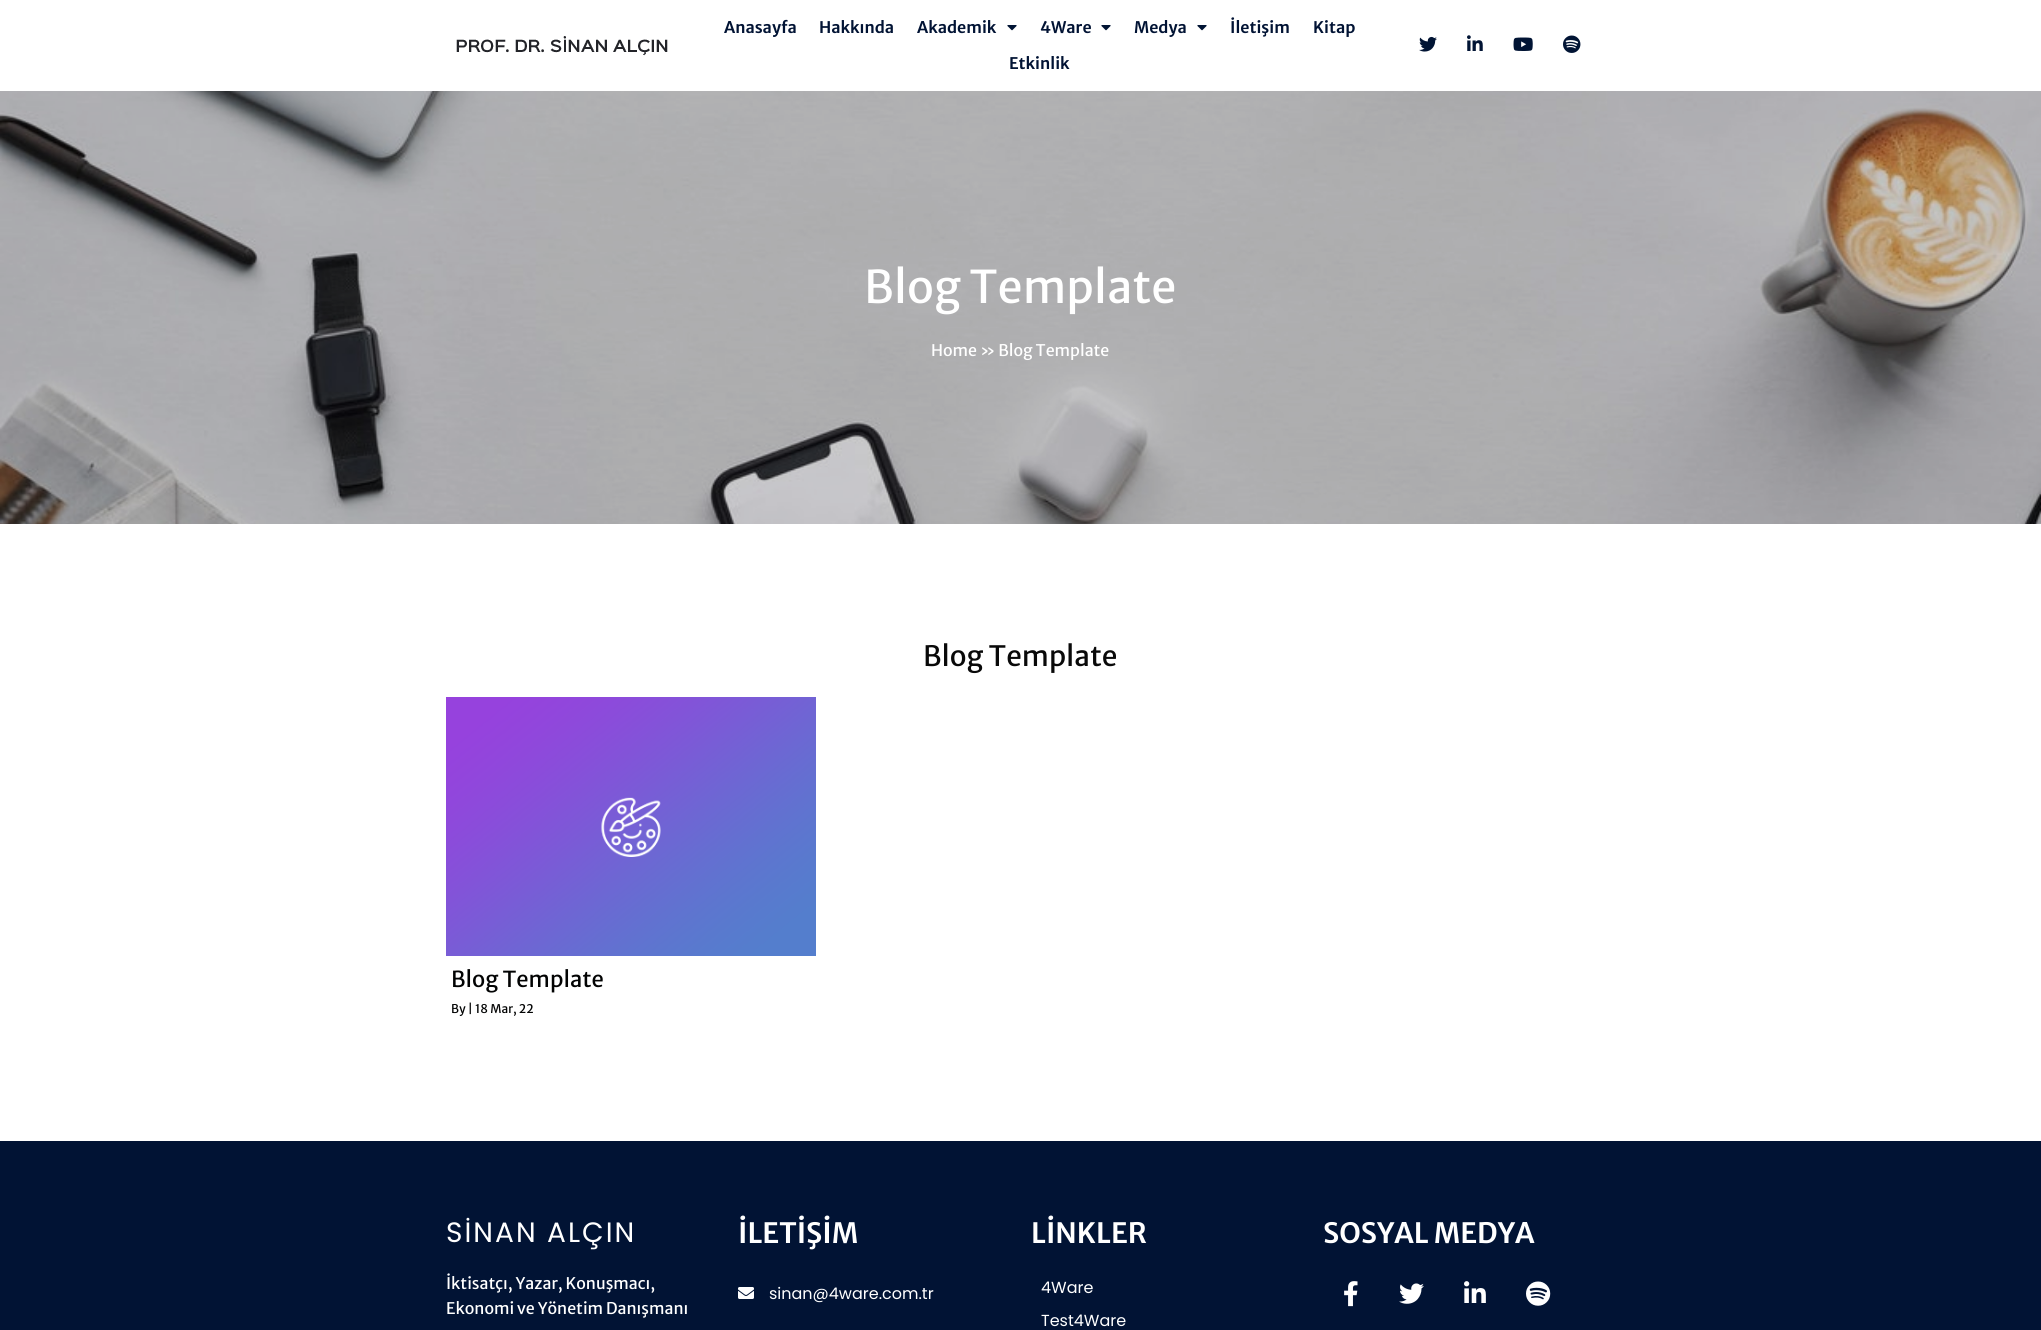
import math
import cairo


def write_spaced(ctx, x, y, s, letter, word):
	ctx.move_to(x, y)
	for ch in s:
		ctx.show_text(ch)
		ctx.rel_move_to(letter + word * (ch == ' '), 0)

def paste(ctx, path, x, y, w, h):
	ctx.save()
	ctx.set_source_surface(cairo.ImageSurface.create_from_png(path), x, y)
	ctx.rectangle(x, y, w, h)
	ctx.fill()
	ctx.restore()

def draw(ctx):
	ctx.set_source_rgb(1, 1, 1)
	ctx.paint()
	paste(ctx, 'media/1.png', 456, 36, 212, 20)
	ctx.select_font_face('Merriweather Sans SemiBold')
	ctx.set_font_size(16)
	ctx.set_source_rgb(0.004, 0.078, 0.204)
	for x, y, s in [
		(724, 33, 'Anasayfa'),
		(819, 33, 'Hakkında'),
		(917, 33, 'Akademik'),
	]:
		ctx.move_to(x, y)
		ctx.show_text(s)
	paste(ctx, 'media/2.png', 1007, 25, 10, 6)
	ctx.move_to(1040, 33)
	ctx.show_text('4Ware')
	paste(ctx, 'media/2.png', 1101, 25, 10, 6)
	ctx.move_to(1134, 33)
	ctx.show_text('Medya')
	paste(ctx, 'media/2.png', 1197, 25, 10, 6)
	for x, y, s in [
		(1230, 33, 'İletişim'),
		(1313, 33, 'Kitap'),
		(1009, 69, 'Etkinlik'),
	]:
		ctx.move_to(x, y)
		ctx.show_text(s)
	paste(ctx, 'media/3.png', 1419, 36, 18, 16)
	paste(ctx, 'media/4.png', 1467, 35, 16, 16)
	paste(ctx, 'media/5.png', 1513, 37, 20, 14)
	paste(ctx, 'media/6.png', 1563, 35, 18, 18)
	paste(ctx, 'media/7.png', 0, 91, 2041, 433)
	ctx.select_font_face('Merriweather Sans')
	ctx.set_font_size(45)
	ctx.set_source_rgb(1, 1, 1)
	ctx.move_to(864, 303)
	ctx.show_text('Blog Template')
	ctx.set_font_size(16)
	ctx.move_to(931, 356)
	ctx.show_text('Home » Blog Template')
	ctx.set_font_size(28)
	ctx.set_source_rgb(0.039, 0.039, 0.039)
	ctx.move_to(923, 666)
	ctx.show_text('Blog Template')
	paste(ctx, 'media/8.png', 446, 697, 370, 259)
	ctx.set_font_size(22)
	ctx.set_source_rgb(0.008, 0.012, 0.012)
	ctx.move_to(451, 987)
	ctx.show_text('Blog Template')
	ctx.set_font_size(12)
	ctx.move_to(451, 1013)
	ctx.show_text('By |')
	ctx.move_to(475, 1013)
	ctx.show_text('18 Mar, 22')
	ctx.set_source_rgb(0.004, 0.078, 0.204)
	ctx.rectangle(0, 1141, 2041, 189)
	ctx.fill()
	ctx.select_font_face('Poppins')
	ctx.set_font_size(28)
	ctx.set_source_rgb(1, 1, 1)
	write_spaced(ctx, 446, 1242, 'SİNAN ALÇIN', 2, 0)
	ctx.select_font_face('Merriweather Sans')
	ctx.set_font_size(16)
	ctx.move_to(446, 1289)
	ctx.show_text('İktisatçı, Yazar, Konuşmacı,')
	ctx.move_to(446, 1314)
	ctx.show_text('Ekonomi ve Yönetim Danışmanı')
	ctx.select_font_face('Merriweather Sans SemiBold')
	ctx.set_font_size(28)
	ctx.move_to(738, 1243)
	ctx.show_text('İLETİŞİM')
	paste(ctx, 'media/9.png', 738, 1287, 16, 12)
	ctx.select_font_face('Poppins')
	ctx.set_font_size(16)
	ctx.move_to(769, 1299)
	ctx.show_text('sinan@4ware.com.tr')
	ctx.select_font_face('Merriweather Sans SemiBold')
	ctx.set_font_size(28)
	ctx.move_to(1031, 1243)
	ctx.show_text('LİNKLER')
	ctx.select_font_face('Poppins')
	ctx.set_font_size(16)
	ctx.move_to(1041, 1293)
	ctx.show_text('4Ware')
	ctx.move_to(1041, 1326)
	ctx.show_text('Test4Ware')
	ctx.select_font_face('Merriweather Sans SemiBold')
	ctx.set_font_size(28)
	ctx.move_to(1323, 1243)
	ctx.show_text('SOSYAL MEDYA')
	paste(ctx, 'media/10.png', 1344, 1281, 14, 26)
	paste(ctx, 'media/11.png', 1399, 1283, 25, 21)
	paste(ctx, 'media/12.png', 1464, 1281, 22, 22)
	paste(ctx, 'media/13.png', 1526, 1281, 25, 25)


surface = cairo.ImageSurface(cairo.FORMAT_RGB24, 2041, 1330)
ctx = cairo.Context(surface)
options = cairo.FontOptions()
options.set_hint_metrics(cairo.HINT_METRICS_OFF)
options.set_hint_style(cairo.HINT_STYLE_NONE)
ctx.set_font_options(options)
ctx.set_miter_limit(4)
draw(ctx)
surface.write_to_png('image.png')
